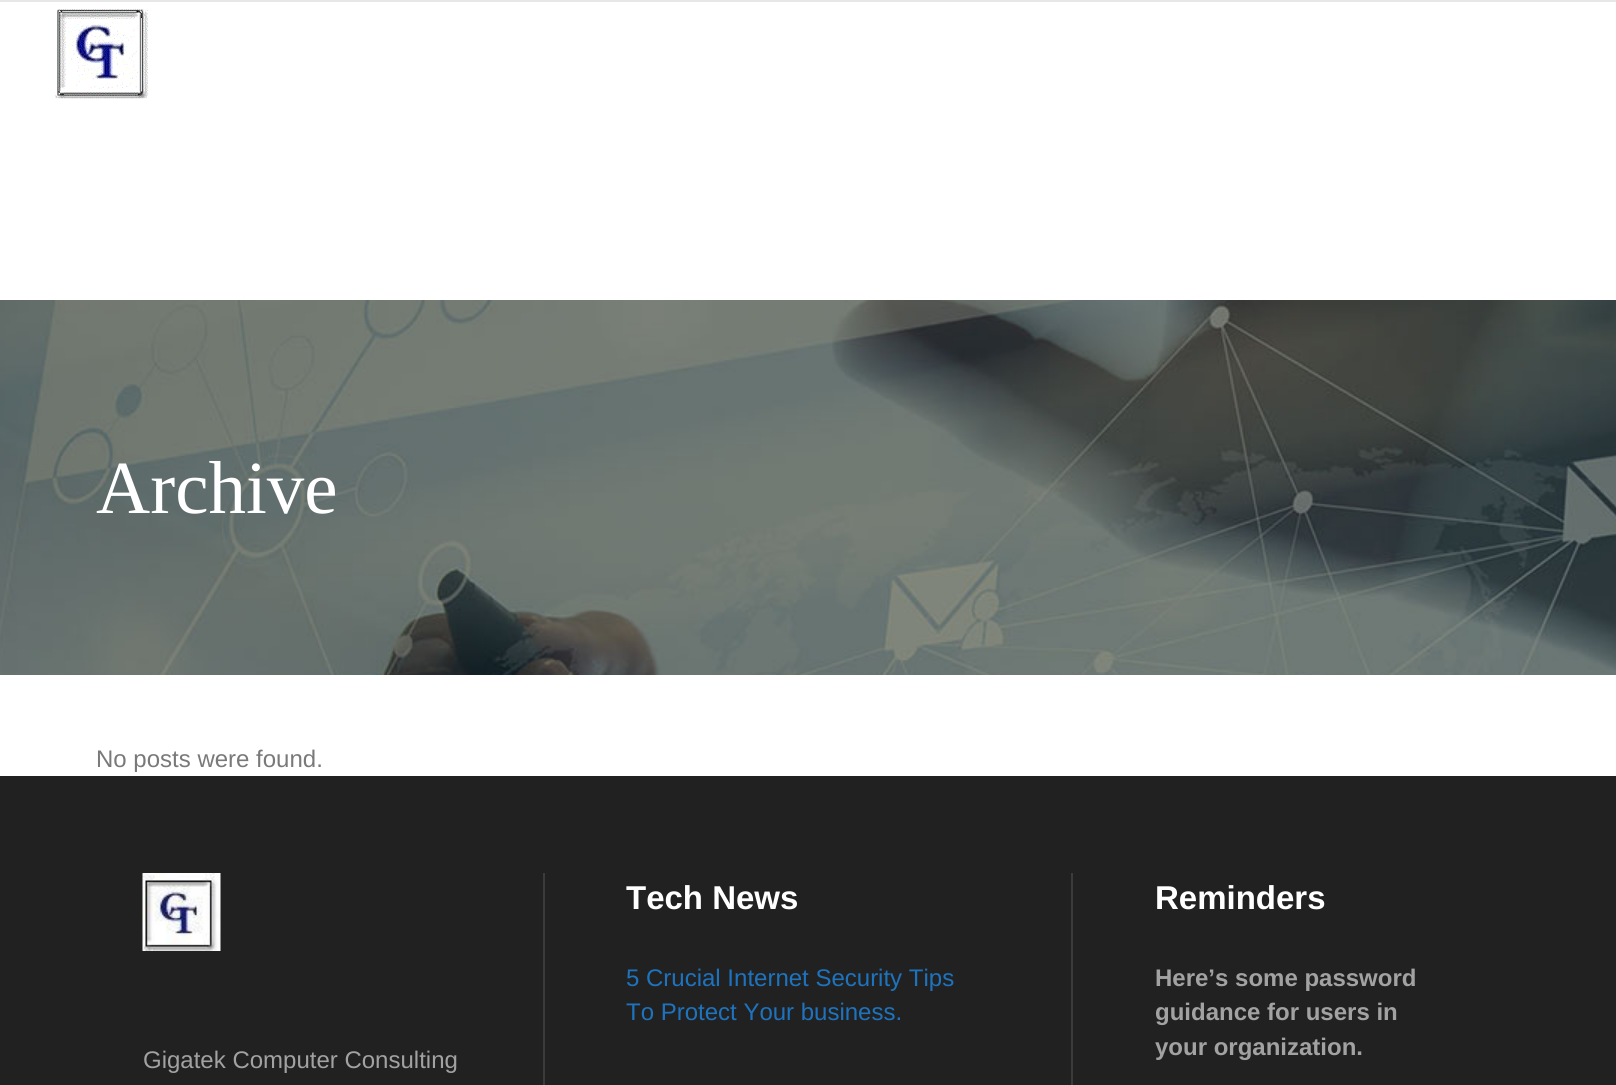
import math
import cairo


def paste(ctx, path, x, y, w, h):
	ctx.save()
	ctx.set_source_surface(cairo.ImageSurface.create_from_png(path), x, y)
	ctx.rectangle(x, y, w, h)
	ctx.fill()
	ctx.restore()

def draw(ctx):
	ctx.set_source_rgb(1, 1, 1)
	ctx.paint()
	ctx.set_source_rgb(0.906, 0.906, 0.906)
	ctx.rectangle(0, 0, 1616, 2)
	ctx.fill()
	paste(ctx, 'media/1.png', 55, 9, 93, 90)
	paste(ctx, 'media/2.png', 0, 300, 1616, 375)
	ctx.select_font_face('Liberation Serif')
	ctx.set_font_size(75)
	ctx.set_source_rgb(1, 1, 1)
	ctx.move_to(96, 513)
	ctx.show_text('Archive')
	ctx.select_font_face('Liberation Sans')
	ctx.set_font_size(24)
	ctx.set_source_rgb(0.475, 0.475, 0.475)
	ctx.move_to(96, 767)
	ctx.show_text('No posts were found.')
	ctx.set_source_rgb(0.129, 0.129, 0.129)
	ctx.rectangle(0, 776, 1616, 309)
	ctx.fill()
	ctx.set_source_rgb(0.231, 0.231, 0.231)
	ctx.rectangle(543, 873, 2, 212)
	ctx.fill()
	paste(ctx, 'media/3.png', 142, 873, 79, 78)
	ctx.set_source_rgb(0.635, 0.635, 0.635)
	ctx.move_to(143, 1068)
	ctx.show_text('Gigatek Computer Consulting')
	ctx.set_source_rgb(0.231, 0.231, 0.231)
	ctx.rectangle(1071, 873, 2, 212)
	ctx.fill()
	ctx.select_font_face('Liberation Sans', cairo.FONT_SLANT_NORMAL, cairo.FONT_WEIGHT_BOLD)
	ctx.set_font_size(33)
	ctx.set_source_rgb(1, 1, 1)
	ctx.move_to(626, 909)
	ctx.show_text('Tech News')
	ctx.select_font_face('Liberation Sans')
	ctx.set_font_size(24)
	ctx.set_source_rgb(0.118, 0.451, 0.745)
	ctx.move_to(626, 986)
	ctx.show_text('5 Crucial Internet Security Tips')
	ctx.move_to(626, 1020)
	ctx.show_text('To Protect Your business.')
	ctx.select_font_face('Liberation Sans', cairo.FONT_SLANT_NORMAL, cairo.FONT_WEIGHT_BOLD)
	ctx.set_font_size(33)
	ctx.set_source_rgb(1, 1, 1)
	ctx.move_to(1155, 909)
	ctx.show_text('Reminders')
	ctx.set_font_size(24)
	ctx.set_source_rgb(0.635, 0.635, 0.635)
	for x, y, s in [
		(1155, 986, 'Here’s some password'),
		(1155, 1020, 'guidance for users in'),
		(1155, 1055, 'your organization.'),
	]:
		ctx.move_to(x, y)
		ctx.show_text(s)


surface = cairo.ImageSurface(cairo.FORMAT_RGB24, 1616, 1085)
ctx = cairo.Context(surface)
options = cairo.FontOptions()
options.set_hint_metrics(cairo.HINT_METRICS_OFF)
options.set_hint_style(cairo.HINT_STYLE_NONE)
ctx.set_font_options(options)
ctx.set_miter_limit(4)
draw(ctx)
surface.write_to_png('image.png')
